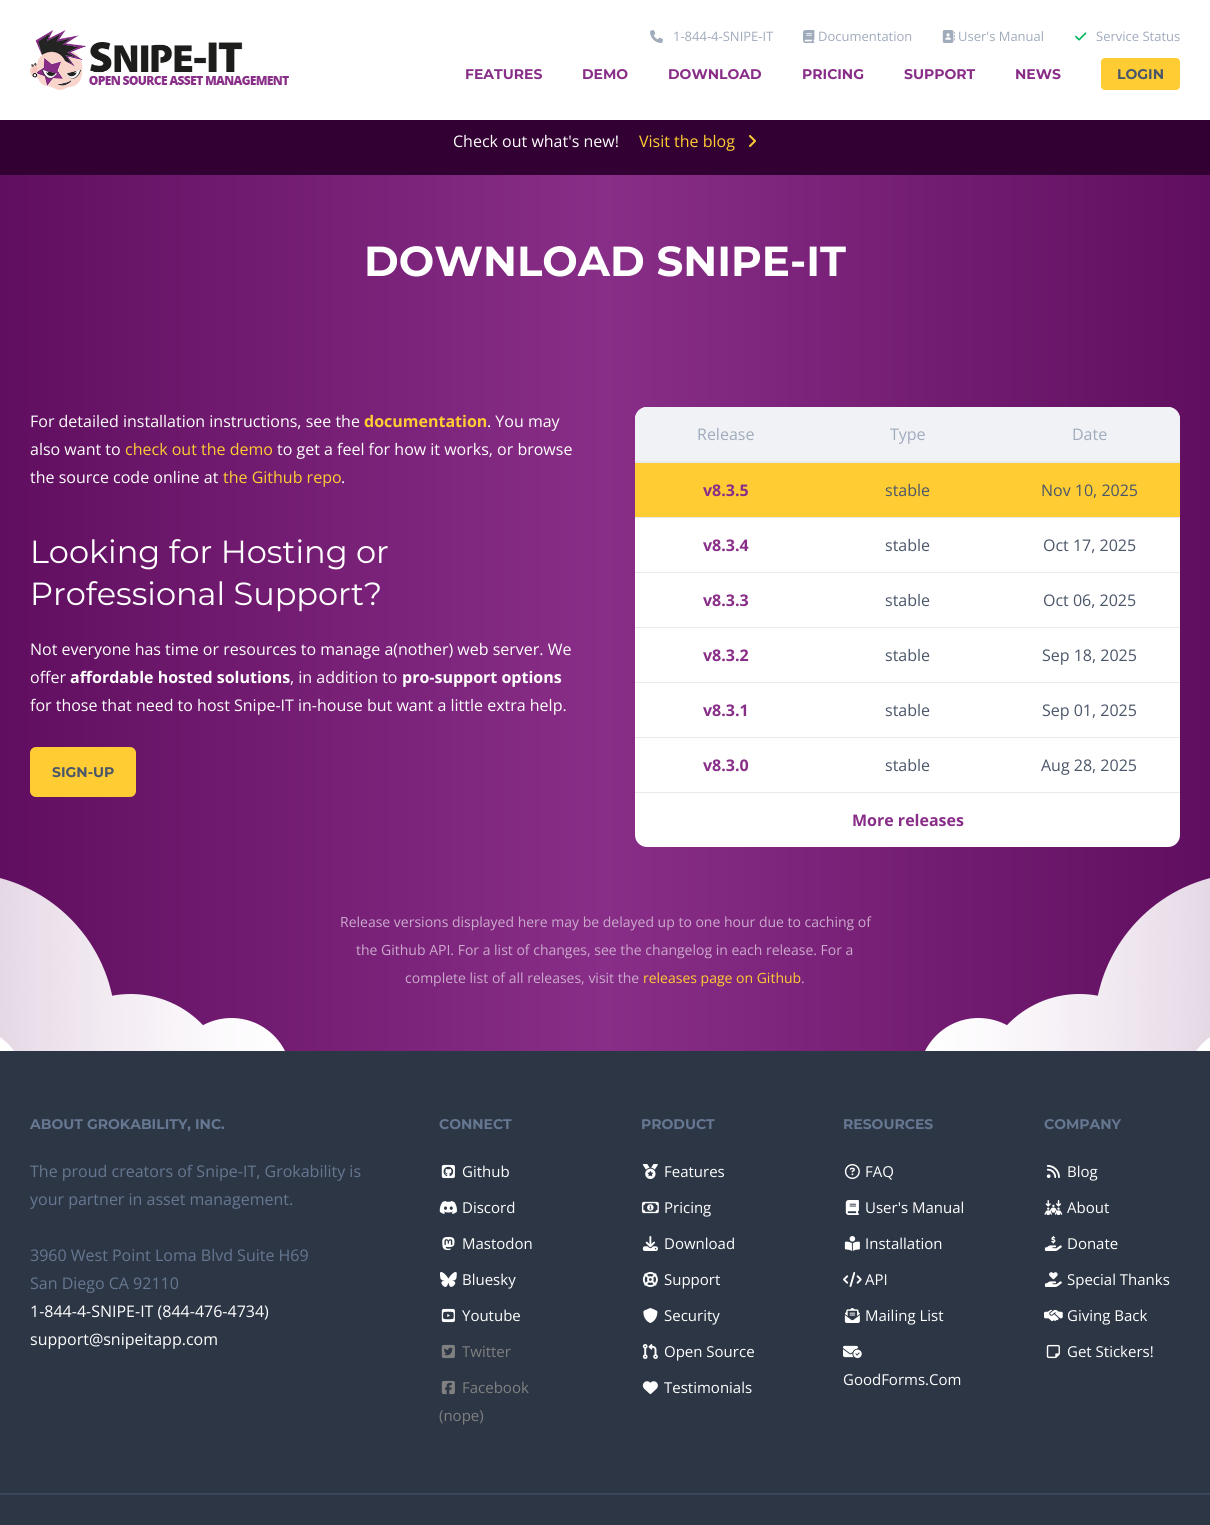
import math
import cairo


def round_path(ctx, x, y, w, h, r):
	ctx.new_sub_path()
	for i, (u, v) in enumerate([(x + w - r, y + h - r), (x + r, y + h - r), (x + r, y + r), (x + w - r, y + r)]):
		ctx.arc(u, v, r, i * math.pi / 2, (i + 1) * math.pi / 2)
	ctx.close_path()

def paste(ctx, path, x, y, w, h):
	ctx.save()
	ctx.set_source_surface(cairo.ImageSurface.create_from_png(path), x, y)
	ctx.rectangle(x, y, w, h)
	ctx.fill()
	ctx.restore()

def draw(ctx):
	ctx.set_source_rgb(0.173, 0.212, 0.271)
	ctx.paint()
	ctx.set_source_rgb(1, 1, 1)
	ctx.rectangle(0, 0, 1210, 120)
	ctx.fill()
	paste(ctx, 'media/1.png', 30, 30, 259, 60)
	paste(ctx, 'media/2.png', 650, 30, 13, 13)
	ctx.select_font_face('Open Sans')
	ctx.set_font_size(13)
	ctx.set_source_rgb(0.627, 0.671, 0.737)
	ctx.move_to(673, 41)
	ctx.show_text('1-844-4-SNIPE-IT')
	paste(ctx, 'media/3.png', 803, 30, 12, 13)
	ctx.move_to(818, 41)
	ctx.show_text('Documentation')
	paste(ctx, 'media/4.png', 942, 30, 13, 13)
	ctx.move_to(958, 41)
	ctx.show_text('User\'s Manual')
	paste(ctx, 'media/5.png', 1075, 32, 12, 9)
	ctx.move_to(1096, 41)
	ctx.show_text('Service Status')
	ctx.select_font_face('Montserrat', cairo.FONT_SLANT_NORMAL, cairo.FONT_WEIGHT_BOLD)
	ctx.set_font_size(14)
	ctx.set_source_rgb(0.537, 0.18, 0.533)
	for x, y, s in [
		(465, 79, 'FEATURES'),
		(582, 79, 'DEMO'),
		(668, 79, 'DOWNLOAD'),
		(802, 79, 'PRICING'),
		(904, 79, 'SUPPORT'),
		(1015, 79, 'NEWS'),
	]:
		ctx.move_to(x, y)
		ctx.show_text(s)
	ctx.set_source_rgb(1, 0.8, 0.2)
	round_path(ctx, 1101, 58, 79, 32, 4)
	ctx.fill()
	ctx.set_source_rgb(0.29, 0.337, 0.412)
	ctx.move_to(1117, 79)
	ctx.show_text('LOGIN')
	ctx.set_source_rgb(0.2, 0, 0.2)
	ctx.rectangle(0, 120, 1210, 55)
	ctx.fill()
	ctx.select_font_face('Open Sans')
	ctx.set_font_size(16)
	ctx.set_source_rgb(1, 1, 1)
	ctx.move_to(453, 147)
	ctx.show_text('Check out what\'s new!')
	ctx.set_source_rgb(1, 0.8, 0.2)
	ctx.move_to(639, 147)
	ctx.show_text('Visit the blog')
	paste(ctx, 'media/6.png', 749, 135, 7, 12)
	gradient = cairo.LinearGradient(0, 261, 1210, 261)
	gradient.add_color_stop_rgba(0, 0.376, 0.055, 0.373, 1)
	gradient.add_color_stop_rgba(0.5, 0.537, 0.18, 0.533, 1)
	gradient.add_color_stop_rgba(1, 0.376, 0.055, 0.373, 1)
	ctx.set_source(gradient)
	ctx.rectangle(0, 175, 1210, 172)
	ctx.fill()
	ctx.select_font_face('Montserrat', cairo.FONT_SLANT_NORMAL, cairo.FONT_WEIGHT_BOLD)
	ctx.set_font_size(42)
	ctx.set_source_rgb(1, 1, 1)
	ctx.move_to(364, 276)
	ctx.show_text('DOWNLOAD SNIPE-IT')
	gradient = cairo.LinearGradient(0, 699, 1210, 699)
	gradient.add_color_stop_rgba(0, 0.376, 0.055, 0.373, 1)
	gradient.add_color_stop_rgba(0.5, 0.537, 0.18, 0.533, 1)
	gradient.add_color_stop_rgba(1, 0.376, 0.055, 0.373, 1)
	ctx.set_source(gradient)
	ctx.rectangle(0, 347, 1210, 704)
	ctx.fill()
	ctx.select_font_face('Open Sans')
	ctx.set_font_size(16)
	ctx.set_source_rgb(1, 1, 1)
	ctx.move_to(30, 427)
	ctx.show_text('For detailed installation instructions, see the')
	ctx.select_font_face('Open Sans', cairo.FONT_SLANT_NORMAL, cairo.FONT_WEIGHT_BOLD)
	ctx.set_source_rgb(1, 0.8, 0.2)
	ctx.move_to(364, 427)
	ctx.show_text('documentation')
	ctx.select_font_face('Open Sans')
	ctx.set_source_rgb(1, 1, 1)
	ctx.move_to(487, 427)
	ctx.show_text('. You may')
	ctx.move_to(30, 455)
	ctx.show_text('also want to')
	ctx.set_source_rgb(1, 0.8, 0.2)
	ctx.move_to(125, 455)
	ctx.show_text('check out the demo')
	ctx.set_source_rgb(1, 1, 1)
	ctx.move_to(277, 455)
	ctx.show_text('to get a feel for how it works, or browse')
	ctx.move_to(30, 483)
	ctx.show_text('the source code online at')
	ctx.set_source_rgb(1, 0.8, 0.2)
	ctx.move_to(223, 483)
	ctx.show_text('the Github repo')
	ctx.set_source_rgb(1, 1, 1)
	ctx.move_to(341, 483)
	ctx.show_text('.')
	ctx.select_font_face('Montserrat')
	ctx.set_font_size(32)
	ctx.move_to(30, 563)
	ctx.show_text('Looking for Hosting or')
	ctx.move_to(30, 605)
	ctx.show_text('Professional Support?')
	ctx.select_font_face('Open Sans')
	ctx.set_font_size(16)
	ctx.move_to(30, 655)
	ctx.show_text('Not everyone has time or resources to manage a(nother) web server. We')
	ctx.move_to(30, 683)
	ctx.show_text('offer')
	ctx.select_font_face('Open Sans', cairo.FONT_SLANT_NORMAL, cairo.FONT_WEIGHT_BOLD)
	ctx.move_to(70, 683)
	ctx.show_text('affordable hosted solutions')
	ctx.select_font_face('Open Sans')
	ctx.move_to(290, 683)
	ctx.show_text(', in addition to')
	ctx.select_font_face('Open Sans', cairo.FONT_SLANT_NORMAL, cairo.FONT_WEIGHT_BOLD)
	ctx.move_to(402, 683)
	ctx.show_text('pro-support options')
	ctx.select_font_face('Open Sans')
	ctx.move_to(30, 711)
	ctx.show_text('for those that need to host Snipe-IT in-house but want a little extra help.')
	ctx.set_source_rgb(1, 0.8, 0.2)
	round_path(ctx, 30, 747, 106, 50, 6)
	ctx.fill()
	ctx.select_font_face('Montserrat', cairo.FONT_SLANT_NORMAL, cairo.FONT_WEIGHT_BOLD)
	ctx.set_font_size(14)
	ctx.set_source_rgb(0.29, 0.337, 0.412)
	ctx.move_to(52, 777)
	ctx.show_text('SIGN-UP')
	ctx.set_source_rgb(1, 1, 1)
	round_path(ctx, 635, 407, 545, 440, 12)
	ctx.fill()
	ctx.set_source_rgb(0.941, 0.949, 0.961)
	ctx.new_path()
	ctx.move_to(647, 407)
	ctx.line_to(817, 407)
	ctx.line_to(817, 463)
	ctx.line_to(635, 463)
	ctx.line_to(635, 419)
	ctx.curve_to(635, 412.5, 640.5, 407, 647, 407)
	ctx.close_path()
	ctx.fill()
	ctx.set_source_rgb(0.902, 0.914, 0.933)
	ctx.rectangle(635, 461, 363, 2)
	ctx.fill()
	ctx.select_font_face('Open Sans')
	ctx.set_font_size(16)
	ctx.set_source_rgb(0.627, 0.671, 0.737)
	ctx.move_to(697, 440)
	ctx.show_text('Release')
	ctx.set_source_rgb(0.941, 0.949, 0.961)
	ctx.rectangle(817, 407, 181, 54)
	ctx.fill()
	ctx.set_source_rgb(0.627, 0.671, 0.737)
	ctx.move_to(890, 440)
	ctx.show_text('Type')
	ctx.set_source_rgb(0.941, 0.949, 0.961)
	ctx.new_path()
	ctx.move_to(998, 407)
	ctx.line_to(1168, 407)
	ctx.curve_to(1174.5, 407, 1180, 412.5, 1180, 419)
	ctx.line_to(1180, 463)
	ctx.line_to(998, 463)
	ctx.close_path()
	ctx.fill()
	ctx.set_source_rgb(0.902, 0.914, 0.933)
	ctx.rectangle(998, 461, 182, 2)
	ctx.fill()
	ctx.set_source_rgb(0.627, 0.671, 0.737)
	ctx.move_to(1072, 440)
	ctx.show_text('Date')
	ctx.set_source_rgb(1, 0.8, 0.2)
	ctx.rectangle(635, 463, 545, 54)
	ctx.fill()
	ctx.set_source_rgb(0.902, 0.914, 0.933)
	ctx.rectangle(635, 517, 545, 1)
	ctx.fill()
	ctx.select_font_face('Open Sans', cairo.FONT_SLANT_NORMAL, cairo.FONT_WEIGHT_BOLD)
	ctx.set_source_rgb(0.537, 0.18, 0.533)
	ctx.move_to(703, 496)
	ctx.show_text('v8.3.5')
	ctx.select_font_face('Open Sans')
	ctx.set_source_rgb(0.29, 0.337, 0.412)
	ctx.move_to(885, 496)
	ctx.show_text('stable')
	ctx.move_to(1041, 496)
	ctx.show_text('Nov 10, 2025')
	ctx.set_source_rgb(0.902, 0.914, 0.933)
	ctx.rectangle(635, 572, 545, 1)
	ctx.fill()
	ctx.select_font_face('Open Sans', cairo.FONT_SLANT_NORMAL, cairo.FONT_WEIGHT_BOLD)
	ctx.set_source_rgb(0.537, 0.18, 0.533)
	ctx.move_to(703, 551)
	ctx.show_text('v8.3.4')
	ctx.select_font_face('Open Sans')
	ctx.set_source_rgb(0.29, 0.337, 0.412)
	ctx.move_to(885, 551)
	ctx.show_text('stable')
	ctx.move_to(1043, 551)
	ctx.show_text('Oct 17, 2025')
	ctx.set_source_rgb(0.902, 0.914, 0.933)
	ctx.rectangle(635, 627, 545, 1)
	ctx.fill()
	ctx.select_font_face('Open Sans', cairo.FONT_SLANT_NORMAL, cairo.FONT_WEIGHT_BOLD)
	ctx.set_source_rgb(0.537, 0.18, 0.533)
	ctx.move_to(703, 606)
	ctx.show_text('v8.3.3')
	ctx.select_font_face('Open Sans')
	ctx.set_source_rgb(0.29, 0.337, 0.412)
	ctx.move_to(885, 606)
	ctx.show_text('stable')
	ctx.move_to(1043, 606)
	ctx.show_text('Oct 06, 2025')
	ctx.set_source_rgb(0.902, 0.914, 0.933)
	ctx.rectangle(635, 682, 545, 1)
	ctx.fill()
	ctx.select_font_face('Open Sans', cairo.FONT_SLANT_NORMAL, cairo.FONT_WEIGHT_BOLD)
	ctx.set_source_rgb(0.537, 0.18, 0.533)
	ctx.move_to(703, 661)
	ctx.show_text('v8.3.2')
	ctx.select_font_face('Open Sans')
	ctx.set_source_rgb(0.29, 0.337, 0.412)
	ctx.move_to(885, 661)
	ctx.show_text('stable')
	ctx.move_to(1042, 661)
	ctx.show_text('Sep 18, 2025')
	ctx.set_source_rgb(0.902, 0.914, 0.933)
	ctx.rectangle(635, 737, 545, 1)
	ctx.fill()
	ctx.select_font_face('Open Sans', cairo.FONT_SLANT_NORMAL, cairo.FONT_WEIGHT_BOLD)
	ctx.set_source_rgb(0.537, 0.18, 0.533)
	ctx.move_to(703, 716)
	ctx.show_text('v8.3.1')
	ctx.select_font_face('Open Sans')
	ctx.set_source_rgb(0.29, 0.337, 0.412)
	ctx.move_to(885, 716)
	ctx.show_text('stable')
	ctx.move_to(1042, 716)
	ctx.show_text('Sep 01, 2025')
	ctx.set_source_rgb(0.902, 0.914, 0.933)
	ctx.rectangle(635, 792, 545, 1)
	ctx.fill()
	ctx.select_font_face('Open Sans', cairo.FONT_SLANT_NORMAL, cairo.FONT_WEIGHT_BOLD)
	ctx.set_source_rgb(0.537, 0.18, 0.533)
	ctx.move_to(703, 771)
	ctx.show_text('v8.3.0')
	ctx.select_font_face('Open Sans')
	ctx.set_source_rgb(0.29, 0.337, 0.412)
	ctx.move_to(885, 771)
	ctx.show_text('stable')
	ctx.move_to(1041, 771)
	ctx.show_text('Aug 28, 2025')
	ctx.select_font_face('Open Sans', cairo.FONT_SLANT_NORMAL, cairo.FONT_WEIGHT_BOLD)
	ctx.set_source_rgb(0.537, 0.18, 0.533)
	ctx.move_to(852, 826)
	ctx.show_text('More releases')
	ctx.select_font_face('Open Sans')
	ctx.set_font_size(14)
	ctx.set_source_rgb(0.8, 0.663, 0.8)
	for x, y, s in [
		(340, 927, 'Release versions displayed here may be delayed up to one hour due to caching of'),
		(356, 955, 'the Github API. For a list of changes, see the changelog in each release. For a'),
		(405, 983, 'complete list of all releases, visit the'),
	]:
		ctx.move_to(x, y)
		ctx.show_text(s)
	ctx.set_source_rgb(1, 0.8, 0.2)
	ctx.move_to(643, 983)
	ctx.show_text('releases page on Github')
	ctx.set_source_rgb(0.8, 0.663, 0.8)
	ctx.move_to(801, 983)
	ctx.show_text('.')
	paste(ctx, 'media/7.png', 0, 878, 285, 173)
	paste(ctx, 'media/8.png', 925, 878, 285, 173)
	ctx.select_font_face('Montserrat', cairo.FONT_SLANT_NORMAL, cairo.FONT_WEIGHT_BOLD)
	ctx.set_source_rgb(0.4, 0.467, 0.569)
	ctx.move_to(30, 1129)
	ctx.show_text('ABOUT GROKABILITY, INC.')
	ctx.select_font_face('Open Sans')
	ctx.set_font_size(16)
	for x, y, s in [
		(30, 1177, 'The proud creators of Snipe-IT, Grokability is'),
		(30, 1205, 'your partner in asset management.'),
		(30, 1261, '3960 West Point Loma Blvd Suite H69'),
		(30, 1289, 'San Diego CA 92110'),
	]:
		ctx.move_to(x, y)
		ctx.show_text(s)
	ctx.set_source_rgb(1, 1, 1)
	ctx.move_to(30, 1317)
	ctx.show_text('1-844-4-SNIPE-IT (844-476-4734)')
	ctx.move_to(30, 1345)
	ctx.show_text('support@snipeitapp.com')
	ctx.select_font_face('Montserrat', cairo.FONT_SLANT_NORMAL, cairo.FONT_WEIGHT_BOLD)
	ctx.set_font_size(14)
	ctx.set_source_rgb(0.4, 0.467, 0.569)
	ctx.move_to(439, 1129)
	ctx.show_text('CONNECT')
	paste(ctx, 'media/9.png', 441, 1164, 14, 15)
	ctx.select_font_face('Open Sans')
	ctx.set_font_size(15)
	ctx.set_source_rgb(1, 1, 1)
	ctx.move_to(462, 1177)
	ctx.show_text('Github')
	paste(ctx, 'media/10.png', 439, 1201, 18, 13)
	ctx.move_to(462, 1213)
	ctx.show_text('Discord')
	paste(ctx, 'media/11.png', 442, 1236, 13, 15)
	ctx.move_to(462, 1249)
	ctx.show_text('Mastodon')
	paste(ctx, 'media/12.png', 439, 1272, 18, 15)
	ctx.move_to(462, 1285)
	ctx.show_text('Bluesky')
	paste(ctx, 'media/13.png', 441, 1308, 14, 15)
	ctx.move_to(462, 1321)
	ctx.show_text('Youtube')
	paste(ctx, 'media/14.png', 441, 1344, 14, 15)
	ctx.set_source_rgb(0.502, 0.502, 0.502)
	ctx.move_to(462, 1357)
	ctx.show_text('Twitter')
	paste(ctx, 'media/15.png', 441, 1380, 14, 15)
	ctx.move_to(462, 1393)
	ctx.show_text('Facebook')
	ctx.move_to(439, 1421)
	ctx.show_text('(nope)')
	ctx.select_font_face('Montserrat', cairo.FONT_SLANT_NORMAL, cairo.FONT_WEIGHT_BOLD)
	ctx.set_font_size(14)
	ctx.set_source_rgb(0.4, 0.467, 0.569)
	ctx.move_to(641, 1129)
	ctx.show_text('PRODUCT')
	paste(ctx, 'media/16.png', 642, 1164, 16, 15)
	ctx.select_font_face('Open Sans')
	ctx.set_font_size(15)
	ctx.set_source_rgb(1, 1, 1)
	ctx.move_to(664, 1177)
	ctx.show_text('Features')
	paste(ctx, 'media/17.png', 641, 1201, 18, 13)
	ctx.move_to(664, 1213)
	ctx.show_text('Pricing')
	paste(ctx, 'media/18.png', 642, 1236, 16, 15)
	ctx.move_to(664, 1249)
	ctx.show_text('Download')
	paste(ctx, 'media/19.png', 642, 1272, 16, 15)
	ctx.move_to(664, 1285)
	ctx.show_text('Support')
	paste(ctx, 'media/20.png', 643, 1308, 15, 15)
	ctx.move_to(664, 1321)
	ctx.show_text('Security')
	paste(ctx, 'media/21.png', 642, 1344, 16, 15)
	ctx.move_to(664, 1357)
	ctx.show_text('Open Source')
	paste(ctx, 'media/22.png', 642, 1381, 16, 13)
	ctx.move_to(664, 1393)
	ctx.show_text('Testimonials')
	ctx.select_font_face('Montserrat', cairo.FONT_SLANT_NORMAL, cairo.FONT_WEIGHT_BOLD)
	ctx.set_font_size(14)
	ctx.set_source_rgb(0.4, 0.467, 0.569)
	ctx.move_to(843, 1129)
	ctx.show_text('RESOURCES')
	paste(ctx, 'media/23.png', 844, 1164, 16, 15)
	ctx.select_font_face('Open Sans')
	ctx.set_font_size(15)
	ctx.set_source_rgb(1, 1, 1)
	ctx.move_to(865, 1177)
	ctx.show_text('FAQ')
	paste(ctx, 'media/24.png', 845, 1200, 14, 15)
	ctx.move_to(865, 1213)
	ctx.show_text('User\'s Manual')
	paste(ctx, 'media/25.png', 844, 1236, 16, 15)
	ctx.move_to(865, 1249)
	ctx.show_text('Installation')
	paste(ctx, 'media/26.png', 843, 1272, 19, 15)
	ctx.move_to(865, 1285)
	ctx.show_text('API')
	paste(ctx, 'media/27.png', 844, 1308, 16, 15)
	ctx.move_to(865, 1321)
	ctx.show_text('Mailing List')
	paste(ctx, 'media/28.png', 843, 1345, 19, 14)
	ctx.move_to(843, 1385)
	ctx.show_text('GoodForms.Com')
	ctx.select_font_face('Montserrat', cairo.FONT_SLANT_NORMAL, cairo.FONT_WEIGHT_BOLD)
	ctx.set_font_size(14)
	ctx.set_source_rgb(0.4, 0.467, 0.569)
	ctx.move_to(1044, 1129)
	ctx.show_text('COMPANY')
	paste(ctx, 'media/29.png', 1046, 1164, 14, 14)
	ctx.select_font_face('Open Sans')
	ctx.set_font_size(15)
	ctx.set_source_rgb(1, 1, 1)
	ctx.move_to(1067, 1177)
	ctx.show_text('Blog')
	paste(ctx, 'media/30.png', 1044, 1200, 19, 15)
	ctx.move_to(1067, 1213)
	ctx.show_text('About')
	paste(ctx, 'media/31.png', 1044, 1236, 18, 15)
	ctx.move_to(1067, 1249)
	ctx.show_text('Donate')
	paste(ctx, 'media/32.png', 1044, 1272, 18, 15)
	ctx.move_to(1067, 1285)
	ctx.show_text('Special Thanks')
	paste(ctx, 'media/33.png', 1044, 1309, 19, 13)
	ctx.move_to(1067, 1321)
	ctx.show_text('Giving Back')
	paste(ctx, 'media/34.png', 1046, 1344, 14, 15)
	ctx.move_to(1067, 1357)
	ctx.show_text('Get Stickers!')
	ctx.set_source_rgb(0.227, 0.275, 0.349)
	ctx.rectangle(0, 1493, 1210, 2)
	ctx.fill()


surface = cairo.ImageSurface(cairo.FORMAT_RGB24, 1210, 1525)
ctx = cairo.Context(surface)
options = cairo.FontOptions()
options.set_hint_metrics(cairo.HINT_METRICS_OFF)
options.set_hint_style(cairo.HINT_STYLE_NONE)
ctx.set_font_options(options)
ctx.set_miter_limit(4)
draw(ctx)
surface.write_to_png('image.png')
